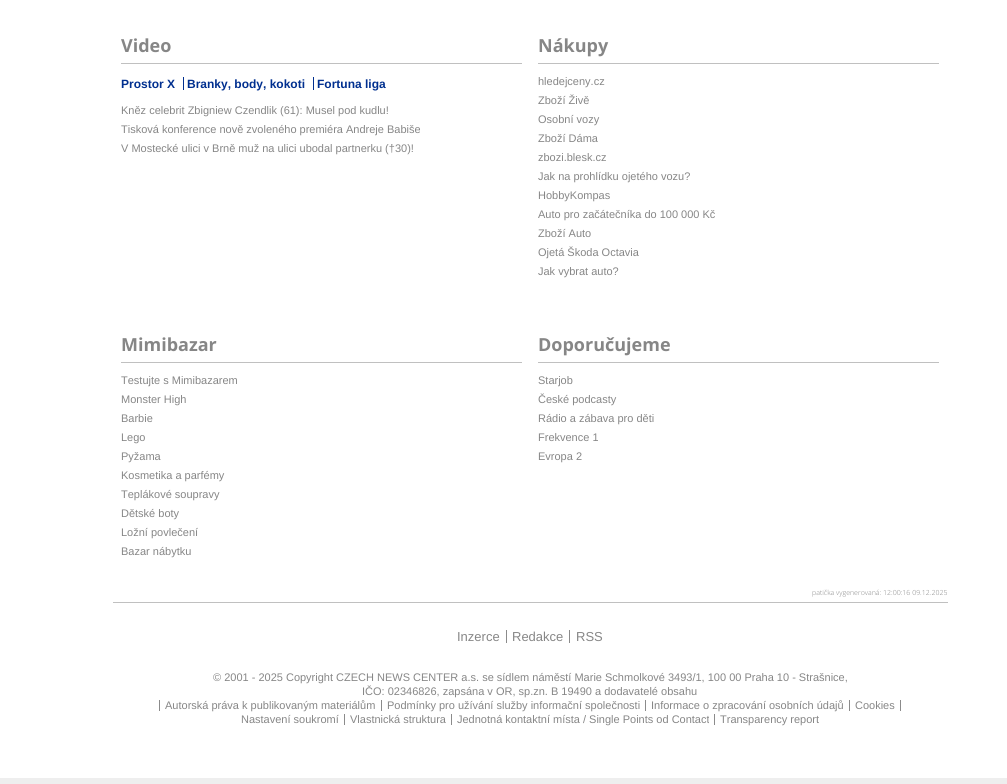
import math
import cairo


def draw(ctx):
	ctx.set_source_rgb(0.933, 0.933, 0.933)
	ctx.paint()
	ctx.set_source_rgb(1, 1, 1)
	ctx.rectangle(0, 0, 1007, 778)
	ctx.fill()
	ctx.select_font_face('Open Sans', cairo.FONT_SLANT_NORMAL, cairo.FONT_WEIGHT_BOLD)
	ctx.set_font_size(18)
	ctx.set_source_rgb(0.525, 0.525, 0.525)
	ctx.move_to(121, 52)
	ctx.show_text('Video')
	ctx.set_source_rgb(0.753, 0.753, 0.753)
	ctx.rectangle(121, 63, 401, 1)
	ctx.fill()
	ctx.select_font_face('Liberation Sans', cairo.FONT_SLANT_NORMAL, cairo.FONT_WEIGHT_BOLD)
	ctx.set_font_size(12)
	ctx.set_source_rgb(0, 0.184, 0.561)
	ctx.move_to(121, 88)
	ctx.show_text('Prostor X')
	ctx.rectangle(183, 77, 1, 13)
	ctx.fill()
	ctx.move_to(187, 88)
	ctx.show_text('Branky, body, kokoti')
	ctx.rectangle(313, 77, 1, 13)
	ctx.fill()
	ctx.move_to(317, 88)
	ctx.show_text('Fortuna liga')
	ctx.select_font_face('Liberation Sans')
	ctx.set_font_size(11)
	ctx.set_source_rgb(0.525, 0.525, 0.525)
	for x, y, s in [
		(121, 114, 'Kněz celebrit Zbigniew Czendlik (61): Musel pod kudlu!'),
		(121, 133, 'Tisková konference nově zvoleného premiéra Andreje Babiše'),
		(121, 152, 'V Mostecké ulici v Brně muž na ulici ubodal partnerku (†30)!'),
	]:
		ctx.move_to(x, y)
		ctx.show_text(s)
	ctx.select_font_face('Open Sans', cairo.FONT_SLANT_NORMAL, cairo.FONT_WEIGHT_BOLD)
	ctx.set_font_size(18)
	ctx.move_to(538, 52)
	ctx.show_text('Nákupy')
	ctx.set_source_rgb(0.753, 0.753, 0.753)
	ctx.rectangle(538, 63, 401, 1)
	ctx.fill()
	ctx.select_font_face('Liberation Sans')
	ctx.set_font_size(11)
	ctx.set_source_rgb(0.525, 0.525, 0.525)
	for x, y, s in [
		(538, 85, 'hledejceny.cz'),
		(538, 104, 'Zboží Živě'),
		(538, 123, 'Osobní vozy'),
		(538, 142, 'Zboží Dáma'),
		(538, 161, 'zbozi.blesk.cz'),
		(538, 180, 'Jak na prohlídku ojetého vozu?'),
		(538, 199, 'HobbyKompas'),
		(538, 218, 'Auto pro začátečníka do 100 000 Kč'),
		(538, 237, 'Zboží Auto'),
		(538, 256, 'Ojetá Škoda Octavia'),
		(538, 275, 'Jak vybrat auto?'),
	]:
		ctx.move_to(x, y)
		ctx.show_text(s)
	ctx.select_font_face('Open Sans', cairo.FONT_SLANT_NORMAL, cairo.FONT_WEIGHT_BOLD)
	ctx.set_font_size(18)
	ctx.move_to(121, 351)
	ctx.show_text('Mimibazar')
	ctx.set_source_rgb(0.753, 0.753, 0.753)
	ctx.rectangle(121, 362, 401, 1)
	ctx.fill()
	ctx.select_font_face('Liberation Sans')
	ctx.set_font_size(11)
	ctx.set_source_rgb(0.525, 0.525, 0.525)
	for x, y, s in [
		(121, 384, 'Testujte s Mimibazarem'),
		(121, 403, 'Monster High'),
		(121, 422, 'Barbie'),
		(121, 441, 'Lego'),
		(121, 460, 'Pyžama'),
		(121, 479, 'Kosmetika a parfémy'),
		(121, 498, 'Teplákové soupravy'),
		(121, 517, 'Dětské boty'),
		(121, 536, 'Ložní povlečení'),
		(121, 555, 'Bazar nábytku'),
	]:
		ctx.move_to(x, y)
		ctx.show_text(s)
	ctx.select_font_face('Open Sans', cairo.FONT_SLANT_NORMAL, cairo.FONT_WEIGHT_BOLD)
	ctx.set_font_size(18)
	ctx.move_to(538, 351)
	ctx.show_text('Doporučujeme')
	ctx.set_source_rgb(0.753, 0.753, 0.753)
	ctx.rectangle(538, 362, 401, 1)
	ctx.fill()
	ctx.select_font_face('Liberation Sans')
	ctx.set_font_size(11)
	ctx.set_source_rgb(0.525, 0.525, 0.525)
	for x, y, s in [
		(538, 384, 'Starjob'),
		(538, 403, 'České podcasty'),
		(538, 422, 'Rádio a zábava pro děti'),
		(538, 441, 'Frekvence 1'),
		(538, 460, 'Evropa 2'),
	]:
		ctx.move_to(x, y)
		ctx.show_text(s)
	ctx.select_font_face('Open Sans Light')
	ctx.set_font_size(7)
	ctx.move_to(812, 595)
	ctx.show_text('patička vygenerovaná: 12:00:16 09.12.2025')
	ctx.set_source_rgb(0.753, 0.753, 0.753)
	ctx.rectangle(113, 602, 835, 1)
	ctx.fill()
	ctx.select_font_face('Liberation Sans')
	ctx.set_font_size(13)
	ctx.set_source_rgb(0.525, 0.525, 0.525)
	ctx.move_to(457, 641)
	ctx.show_text('Inzerce')
	ctx.set_source_rgb(0.545, 0.545, 0.545)
	ctx.rectangle(506, 630, 1, 13)
	ctx.fill()
	ctx.set_source_rgb(0.525, 0.525, 0.525)
	ctx.move_to(512, 641)
	ctx.show_text('Redakce')
	ctx.set_source_rgb(0.545, 0.545, 0.545)
	ctx.rectangle(569, 630, 1, 13)
	ctx.fill()
	ctx.set_source_rgb(0.525, 0.525, 0.525)
	ctx.move_to(576, 641)
	ctx.show_text('RSS')
	ctx.set_font_size(11)
	ctx.move_to(213, 681)
	ctx.show_text('© 2001 - 2025 Copyright CZECH NEWS CENTER a.s. se sídlem náměstí Marie Schmolkové 3493/1, 100 00 Praha 10 - Strašnice,')
	ctx.move_to(362, 695)
	ctx.show_text('IČO: 02346826, zapsána v OR, sp.zn. B 19490 a dodavatelé obsahu')
	ctx.set_source_rgb(0.545, 0.545, 0.545)
	ctx.rectangle(159, 700, 1, 11)
	ctx.fill()
	ctx.set_source_rgb(0.525, 0.525, 0.525)
	ctx.move_to(165, 709)
	ctx.show_text('Autorská práva k publikovaným materiálům')
	ctx.set_source_rgb(0.545, 0.545, 0.545)
	ctx.rectangle(381, 700, 1, 11)
	ctx.fill()
	ctx.set_source_rgb(0.525, 0.525, 0.525)
	ctx.move_to(387, 709)
	ctx.show_text('Podmínky pro užívání služby informační společnosti')
	ctx.set_source_rgb(0.545, 0.545, 0.545)
	ctx.rectangle(645, 700, 1, 11)
	ctx.fill()
	ctx.set_source_rgb(0.525, 0.525, 0.525)
	ctx.move_to(651, 709)
	ctx.show_text('Informace o zpracování osobních údajů')
	ctx.set_source_rgb(0.545, 0.545, 0.545)
	ctx.rectangle(849, 700, 1, 11)
	ctx.fill()
	ctx.set_source_rgb(0.525, 0.525, 0.525)
	ctx.move_to(855, 709)
	ctx.show_text('Cookies')
	ctx.set_source_rgb(0.545, 0.545, 0.545)
	ctx.rectangle(900, 700, 1, 11)
	ctx.fill()
	ctx.set_source_rgb(0.525, 0.525, 0.525)
	ctx.move_to(241, 723)
	ctx.show_text('Nastavení soukromí')
	ctx.set_source_rgb(0.545, 0.545, 0.545)
	ctx.rectangle(344, 714, 1, 11)
	ctx.fill()
	ctx.set_source_rgb(0.525, 0.525, 0.525)
	ctx.move_to(350, 723)
	ctx.show_text('Vlastnická struktura')
	ctx.set_source_rgb(0.545, 0.545, 0.545)
	ctx.rectangle(451, 714, 1, 11)
	ctx.fill()
	ctx.set_source_rgb(0.525, 0.525, 0.525)
	ctx.move_to(457, 723)
	ctx.show_text('Jednotná kontaktní místa / Single Points od Contact')
	ctx.set_source_rgb(0.545, 0.545, 0.545)
	ctx.rectangle(714, 714, 1, 11)
	ctx.fill()
	ctx.set_source_rgb(0.525, 0.525, 0.525)
	ctx.move_to(720, 723)
	ctx.show_text('Transparency report')


surface = cairo.ImageSurface(cairo.FORMAT_RGB24, 1007, 784)
ctx = cairo.Context(surface)
options = cairo.FontOptions()
options.set_hint_metrics(cairo.HINT_METRICS_OFF)
options.set_hint_style(cairo.HINT_STYLE_NONE)
ctx.set_font_options(options)
ctx.set_miter_limit(4)
draw(ctx)
surface.write_to_png('image.png')
